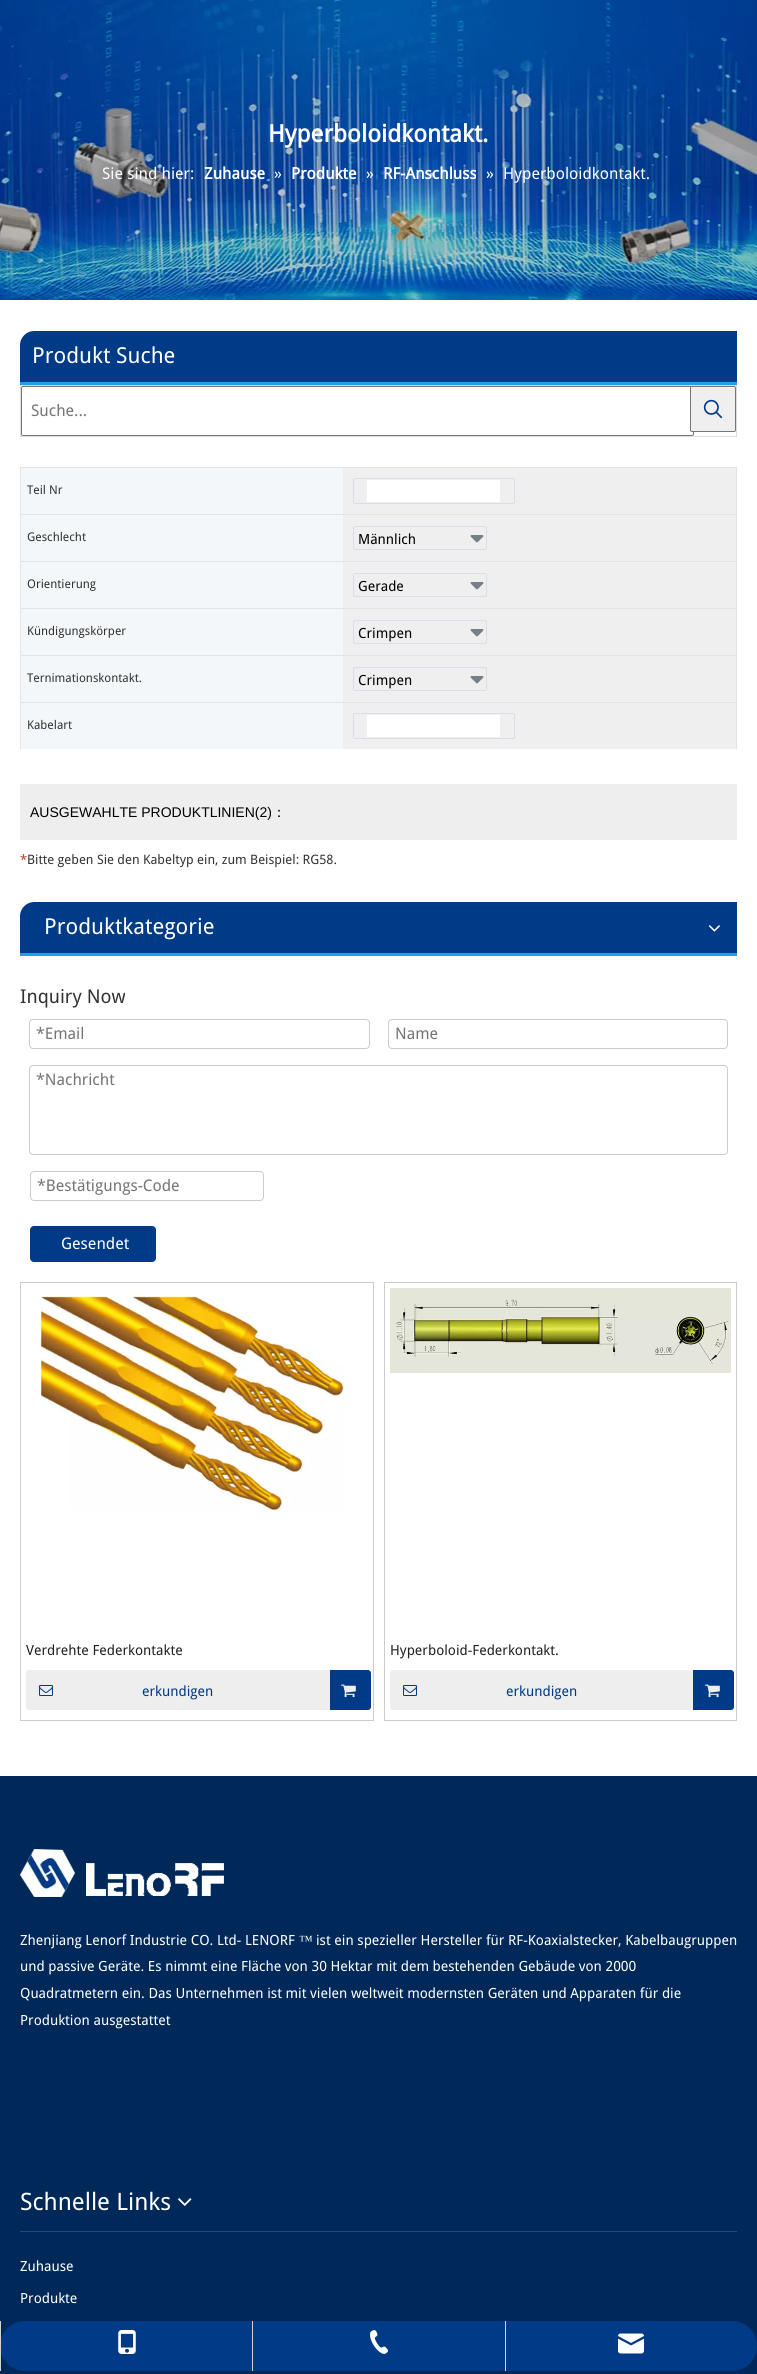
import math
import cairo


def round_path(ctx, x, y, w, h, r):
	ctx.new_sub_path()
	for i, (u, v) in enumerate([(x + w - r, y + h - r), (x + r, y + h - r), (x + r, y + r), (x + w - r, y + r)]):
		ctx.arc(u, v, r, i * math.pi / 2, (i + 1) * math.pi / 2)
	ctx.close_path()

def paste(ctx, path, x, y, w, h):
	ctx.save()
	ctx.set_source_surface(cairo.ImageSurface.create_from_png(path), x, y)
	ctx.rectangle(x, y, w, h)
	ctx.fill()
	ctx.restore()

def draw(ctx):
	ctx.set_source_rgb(1, 1, 1)
	ctx.paint()
	paste(ctx, 'media/1.png', 0, 0, 757, 300)
	ctx.select_font_face('Droid Sans', cairo.FONT_SLANT_NORMAL, cairo.FONT_WEIGHT_BOLD)
	ctx.set_font_size(24)
	ctx.set_source_rgb(1, 1, 1)
	ctx.move_to(268, 142)
	ctx.show_text('Hyperboloidkontakt.')
	ctx.select_font_face('Droid Sans')
	ctx.set_font_size(16)
	ctx.move_to(102, 179)
	ctx.show_text('Sie sind hier:')
	ctx.select_font_face('Droid Sans', cairo.FONT_SLANT_NORMAL, cairo.FONT_WEIGHT_BOLD)
	ctx.move_to(204, 179)
	ctx.show_text('Zuhause')
	ctx.select_font_face('Droid Sans')
	ctx.move_to(274, 179)
	ctx.show_text('»')
	ctx.select_font_face('Droid Sans', cairo.FONT_SLANT_NORMAL, cairo.FONT_WEIGHT_BOLD)
	ctx.move_to(291, 179)
	ctx.show_text('Produkte')
	ctx.select_font_face('Droid Sans')
	ctx.move_to(366, 179)
	ctx.show_text('»')
	ctx.select_font_face('Droid Sans', cairo.FONT_SLANT_NORMAL, cairo.FONT_WEIGHT_BOLD)
	ctx.move_to(383, 179)
	ctx.show_text('RF-Anschluss')
	ctx.select_font_face('Droid Sans')
	ctx.move_to(486, 179)
	ctx.show_text('»')
	ctx.move_to(503, 179)
	ctx.show_text('Hyperboloidkontakt.')
	ctx.set_source_rgb(0.004, 0.227, 0.529)
	ctx.new_path()
	ctx.move_to(34, 331)
	ctx.line_to(737, 331)
	ctx.line_to(737, 382)
	ctx.line_to(20, 382)
	ctx.line_to(20, 345)
	ctx.curve_to(20, 337.5, 26.5, 331, 34, 331)
	ctx.close_path()
	ctx.fill()
	ctx.set_source_rgb(0.125, 0.62, 0.918)
	ctx.rectangle(20, 382, 717, 3)
	ctx.fill()
	ctx.set_font_size(22)
	ctx.set_source_rgb(1, 1, 1)
	ctx.move_to(32, 363)
	ctx.show_text('Produkt Suche')
	ctx.rectangle(20.5, 385.5, 716, 51)
	ctx.set_source_rgb(0.867, 0.867, 0.867)
	ctx.set_line_width(1)
	ctx.stroke()
	round_path(ctx, 21.5, 386.5, 672, 49, 1.5)
	ctx.set_source_rgb(0.463, 0.463, 0.463)
	ctx.stroke()
	ctx.set_font_size(16)
	ctx.set_source_rgb(0.459, 0.459, 0.459)
	ctx.move_to(31, 416)
	ctx.show_text('Suche...')
	ctx.set_source_rgb(0.937, 0.937, 0.937)
	round_path(ctx, 690.5, 386.5, 45, 45, 1.5)
	ctx.fill_preserve()
	ctx.set_source_rgb(0.463, 0.463, 0.463)
	ctx.stroke()
	paste(ctx, 'media/2.png', 703, 399, 20, 20)
	ctx.set_source_rgb(0.937, 0.937, 0.937)
	ctx.rectangle(343, 468, 393, 281)
	ctx.fill()
	ctx.set_source_rgb(0.89, 0.89, 0.89)
	ctx.rectangle(20, 467, 717, 1)
	ctx.rectangle(736, 467, 1, 47)
	ctx.rectangle(20, 467, 1, 47)
	ctx.fill()
	ctx.set_source_rgb(0.957, 0.965, 0.976)
	ctx.rectangle(21, 468, 322, 46)
	ctx.fill()
	ctx.set_font_size(12)
	ctx.set_source_rgb(0.2, 0.2, 0.2)
	ctx.move_to(27, 494)
	ctx.show_text('Teil Nr')
	round_path(ctx, 353.5, 478.5, 161, 25, 1.5)
	ctx.set_source_rgb(0.851, 0.867, 0.898)
	ctx.stroke()
	ctx.set_source_rgb(1, 1, 1)
	ctx.rectangle(367, 480, 133, 22)
	ctx.fill()
	ctx.set_source_rgb(0.89, 0.89, 0.89)
	ctx.rectangle(20, 514, 717, 1)
	ctx.rectangle(736, 514, 1, 47)
	ctx.rectangle(20, 514, 1, 47)
	ctx.fill()
	ctx.set_source_rgb(0.957, 0.965, 0.976)
	ctx.rectangle(21, 515, 322, 46)
	ctx.fill()
	ctx.set_source_rgb(0.2, 0.2, 0.2)
	ctx.move_to(27, 541)
	ctx.show_text('Geschlecht')
	paste(ctx, 'media/3.png', 470, 535, 14, 8)
	round_path(ctx, 353.5, 526.5, 133, 23, 1.5)
	ctx.set_source_rgb(0.851, 0.867, 0.898)
	ctx.stroke()
	ctx.set_font_size(14)
	ctx.set_source_rgb(0, 0, 0)
	ctx.move_to(358, 544)
	ctx.show_text('Männlich')
	ctx.set_source_rgb(0.89, 0.89, 0.89)
	ctx.rectangle(20, 561, 717, 1)
	ctx.rectangle(736, 561, 1, 47)
	ctx.rectangle(20, 561, 1, 47)
	ctx.fill()
	ctx.set_source_rgb(0.957, 0.965, 0.976)
	ctx.rectangle(21, 562, 322, 46)
	ctx.fill()
	ctx.set_font_size(12)
	ctx.set_source_rgb(0.2, 0.2, 0.2)
	ctx.move_to(27, 588)
	ctx.show_text('Orientierung')
	paste(ctx, 'media/3.png', 470, 582, 14, 8)
	round_path(ctx, 353.5, 573.5, 133, 23, 1.5)
	ctx.set_source_rgb(0.851, 0.867, 0.898)
	ctx.stroke()
	ctx.set_font_size(14)
	ctx.set_source_rgb(0, 0, 0)
	ctx.move_to(358, 591)
	ctx.show_text('Gerade')
	ctx.set_source_rgb(0.89, 0.89, 0.89)
	ctx.rectangle(20, 608, 717, 1)
	ctx.rectangle(736, 608, 1, 47)
	ctx.rectangle(20, 608, 1, 47)
	ctx.fill()
	ctx.set_source_rgb(0.957, 0.965, 0.976)
	ctx.rectangle(21, 609, 322, 46)
	ctx.fill()
	ctx.set_font_size(12)
	ctx.set_source_rgb(0.2, 0.2, 0.2)
	ctx.move_to(27, 635)
	ctx.show_text('Kündigungskörper')
	paste(ctx, 'media/3.png', 470, 629, 14, 8)
	round_path(ctx, 353.5, 620.5, 133, 23, 1.5)
	ctx.set_source_rgb(0.851, 0.867, 0.898)
	ctx.stroke()
	ctx.set_font_size(14)
	ctx.set_source_rgb(0, 0, 0)
	ctx.move_to(358, 638)
	ctx.show_text('Crimpen')
	ctx.set_source_rgb(0.89, 0.89, 0.89)
	ctx.rectangle(20, 655, 717, 1)
	ctx.rectangle(736, 655, 1, 47)
	ctx.rectangle(20, 655, 1, 47)
	ctx.fill()
	ctx.set_source_rgb(0.957, 0.965, 0.976)
	ctx.rectangle(21, 656, 322, 46)
	ctx.fill()
	ctx.set_font_size(12)
	ctx.set_source_rgb(0.2, 0.2, 0.2)
	ctx.move_to(27, 682)
	ctx.show_text('Ternimationskontakt.')
	paste(ctx, 'media/3.png', 470, 676, 14, 8)
	round_path(ctx, 353.5, 667.5, 133, 23, 1.5)
	ctx.set_source_rgb(0.851, 0.867, 0.898)
	ctx.stroke()
	ctx.set_font_size(14)
	ctx.set_source_rgb(0, 0, 0)
	ctx.move_to(358, 685)
	ctx.show_text('Crimpen')
	ctx.set_source_rgb(0.89, 0.89, 0.89)
	ctx.rectangle(20, 702, 717, 1)
	ctx.rectangle(736, 702, 1, 47)
	ctx.rectangle(20, 702, 1, 47)
	ctx.fill()
	ctx.set_source_rgb(0.957, 0.965, 0.976)
	ctx.rectangle(21, 703, 322, 46)
	ctx.fill()
	ctx.set_font_size(12)
	ctx.set_source_rgb(0.2, 0.2, 0.2)
	ctx.move_to(27, 729)
	ctx.show_text('Kabelart')
	round_path(ctx, 353.5, 713.5, 161, 25, 1.5)
	ctx.set_source_rgb(0.851, 0.867, 0.898)
	ctx.stroke()
	ctx.set_source_rgb(1, 1, 1)
	ctx.rectangle(367, 715, 133, 22)
	ctx.fill()
	ctx.set_source_rgb(0.933, 0.933, 0.933)
	ctx.rectangle(20, 784, 717, 56)
	ctx.fill()
	ctx.select_font_face('Liberation Sans')
	ctx.set_font_size(14)
	ctx.set_source_rgb(0, 0, 0)
	ctx.move_to(30, 817)
	ctx.show_text('AUSGEWAHLTE PRODUKTLINIEN(2)')
	ctx.select_font_face('WenQuanYi Zen Hei Medium')
	ctx.move_to(272, 817)
	ctx.show_text('：')
	ctx.select_font_face('Droid Sans')
	ctx.set_font_size(13)
	ctx.set_source_rgb(0.753, 0.224, 0.169)
	ctx.move_to(20, 864)
	ctx.show_text('*')
	ctx.set_source_rgb(0.2, 0.2, 0.2)
	ctx.move_to(27, 864)
	ctx.show_text('Bitte geben Sie den Kabeltyp ein, zum Beispiel: RG58.')
	ctx.set_source_rgb(0.004, 0.227, 0.529)
	ctx.new_path()
	ctx.move_to(34, 902)
	ctx.line_to(737, 902)
	ctx.line_to(737, 953)
	ctx.line_to(20, 953)
	ctx.line_to(20, 916)
	ctx.curve_to(20, 908.5, 26.5, 902, 34, 902)
	ctx.close_path()
	ctx.fill()
	ctx.set_source_rgb(0.125, 0.62, 0.918)
	ctx.rectangle(20, 953, 717, 3)
	ctx.fill()
	ctx.set_font_size(22)
	ctx.set_source_rgb(1, 1, 1)
	ctx.move_to(44, 934)
	ctx.show_text('Produktkategorie')
	paste(ctx, 'media/4.png', 708, 925, 12, 7)
	ctx.set_font_size(19)
	ctx.set_source_rgb(0.2, 0.2, 0.2)
	ctx.move_to(20, 1003)
	ctx.show_text('Inquiry Now')
	round_path(ctx, 29.5, 1019.5, 340, 29, 3.5)
	ctx.set_source_rgb(0.8, 0.8, 0.8)
	ctx.stroke()
	ctx.set_font_size(16)
	ctx.set_source_rgb(0.459, 0.459, 0.459)
	ctx.move_to(36, 1039)
	ctx.show_text('*Email')
	round_path(ctx, 388.5, 1019.5, 339, 29, 3.5)
	ctx.set_source_rgb(0.8, 0.8, 0.8)
	ctx.stroke()
	ctx.set_source_rgb(0.459, 0.459, 0.459)
	ctx.move_to(395, 1039)
	ctx.show_text('Name')
	round_path(ctx, 29.5, 1065.5, 698, 89, 3.5)
	ctx.set_source_rgb(0.8, 0.8, 0.8)
	ctx.stroke()
	ctx.set_source_rgb(0.459, 0.459, 0.459)
	ctx.move_to(36, 1085)
	ctx.show_text('*Nachricht')
	round_path(ctx, 30.5, 1171.5, 233, 29, 3.5)
	ctx.set_source_rgb(0.8, 0.8, 0.8)
	ctx.stroke()
	ctx.set_source_rgb(0.459, 0.459, 0.459)
	ctx.move_to(37, 1191)
	ctx.show_text('*Bestätigungs-Code')
	ctx.set_source_rgb(0.004, 0.227, 0.529)
	round_path(ctx, 30.5, 1226.5, 125, 35, 3.5)
	ctx.fill_preserve()
	ctx.stroke()
	ctx.set_source_rgb(1, 1, 1)
	ctx.move_to(61, 1249)
	ctx.show_text('Gesendet')
	ctx.rectangle(20.5, 1282.5, 353, 438)
	ctx.set_source_rgb(0.8, 0.8, 0.8)
	ctx.stroke()
	paste(ctx, 'media/5.png', 39, 1293, 306, 218)
	ctx.set_font_size(14)
	ctx.set_source_rgb(0.133, 0.133, 0.133)
	ctx.move_to(26, 1655)
	ctx.show_text('Verdrehte Federkontakte')
	ctx.set_source_rgb(0.933, 0.933, 0.933)
	round_path(ctx, 26.5, 1670.5, 343, 39, 2.5)
	ctx.fill_preserve()
	ctx.stroke()
	paste(ctx, 'media/6.png', 39, 1685, 14, 11)
	ctx.set_source_rgb(0.004, 0.227, 0.529)
	ctx.move_to(142, 1696)
	ctx.show_text('erkundigen')
	ctx.new_path()
	ctx.move_to(330, 1670)
	ctx.line_to(368, 1670)
	ctx.curve_to(369.5, 1670, 371, 1671.5, 371, 1673)
	ctx.line_to(371, 1707)
	ctx.curve_to(371, 1708.5, 369.5, 1710, 368, 1710)
	ctx.line_to(330, 1710)
	ctx.close_path()
	ctx.fill()
	paste(ctx, 'media/7.png', 341, 1684, 15, 14)
	ctx.rectangle(384.5, 1282.5, 352, 438)
	ctx.set_source_rgb(0.8, 0.8, 0.8)
	ctx.stroke()
	paste(ctx, 'media/8.png', 390, 1288, 341, 85)
	ctx.set_source_rgb(0.133, 0.133, 0.133)
	ctx.move_to(390, 1655)
	ctx.show_text('Hyperboloid-Federkontakt.')
	ctx.set_source_rgb(0.933, 0.933, 0.933)
	round_path(ctx, 390.5, 1670.5, 342, 39, 2.5)
	ctx.fill_preserve()
	ctx.stroke()
	paste(ctx, 'media/6.png', 403, 1685, 14, 11)
	ctx.set_source_rgb(0.004, 0.227, 0.529)
	ctx.move_to(506, 1696)
	ctx.show_text('erkundigen')
	ctx.new_path()
	ctx.move_to(693, 1670)
	ctx.line_to(731, 1670)
	ctx.curve_to(732.5, 1670, 734, 1671.5, 734, 1673)
	ctx.line_to(734, 1707)
	ctx.curve_to(734, 1708.5, 732.5, 1710, 731, 1710)
	ctx.line_to(693, 1710)
	ctx.close_path()
	ctx.fill()
	paste(ctx, 'media/7.png', 705, 1684, 15, 14)
	ctx.set_source_rgb(0, 0.161, 0.353)
	ctx.rectangle(0, 1776, 757, 598)
	ctx.fill()
	paste(ctx, 'media/9.png', 20, 1849, 204, 48)
	ctx.set_source_rgb(1, 1, 1)
	ctx.move_to(20, 1945)
	ctx.show_text('Zhenjiang Lenorf Industrie CO. Ltd- LENORF')
	ctx.select_font_face('Liberation Serif')
	ctx.move_to(299, 1945)
	ctx.show_text('™')
	ctx.select_font_face('Droid Sans')
	for x, y, s in [
		(316, 1945, 'ist ein spezieller Hersteller für RF-Koaxialstecker, Kabelbaugruppen'),
		(20, 1971, 'und passive Geräte. Es nimmt eine Fläche von 30 Hektar mit dem bestehenden Gebäude von 2000'),
		(20, 1998, 'Quadratmetern ein. Das Unternehmen ist mit vielen weltweit modernsten Geräten und Apparaten für die'),
		(20, 2025, 'Produktion ausgestattet'),
	]:
		ctx.move_to(x, y)
		ctx.show_text(s)
	ctx.set_source_rgb(0.149, 0.286, 0.451)
	ctx.rectangle(20, 2231, 717, 1)
	ctx.fill()
	ctx.set_font_size(24)
	ctx.set_source_rgb(1, 1, 1)
	ctx.move_to(20, 2210)
	ctx.show_text('Schnelle Links')
	paste(ctx, 'media/10.png', 178, 2198, 14, 8)
	ctx.set_font_size(14)
	ctx.move_to(20, 2271)
	ctx.show_text('Zuhause')
	ctx.move_to(20, 2303)
	ctx.show_text('Produkte')
	ctx.set_source_rgb(0.004, 0.227, 0.529)
	round_path(ctx, 0, 2321, 757, 50, 25)
	ctx.fill()
	ctx.set_source_rgb(0.827, 0.827, 0.827)
	ctx.rectangle(0, 2321, 1, 50)
	ctx.fill()
	paste(ctx, 'media/11.png', 118, 2330, 18, 24)
	ctx.rectangle(252, 2321, 1, 50)
	ctx.fill()
	paste(ctx, 'media/12.png', 370, 2330, 18, 24)
	ctx.rectangle(505, 2321, 1, 50)
	ctx.fill()
	paste(ctx, 'media/13.png', 618, 2333, 26, 21)


surface = cairo.ImageSurface(cairo.FORMAT_RGB24, 757, 2374)
ctx = cairo.Context(surface)
options = cairo.FontOptions()
options.set_hint_metrics(cairo.HINT_METRICS_OFF)
options.set_hint_style(cairo.HINT_STYLE_NONE)
ctx.set_font_options(options)
ctx.set_miter_limit(4)
draw(ctx)
surface.write_to_png('image.png')
